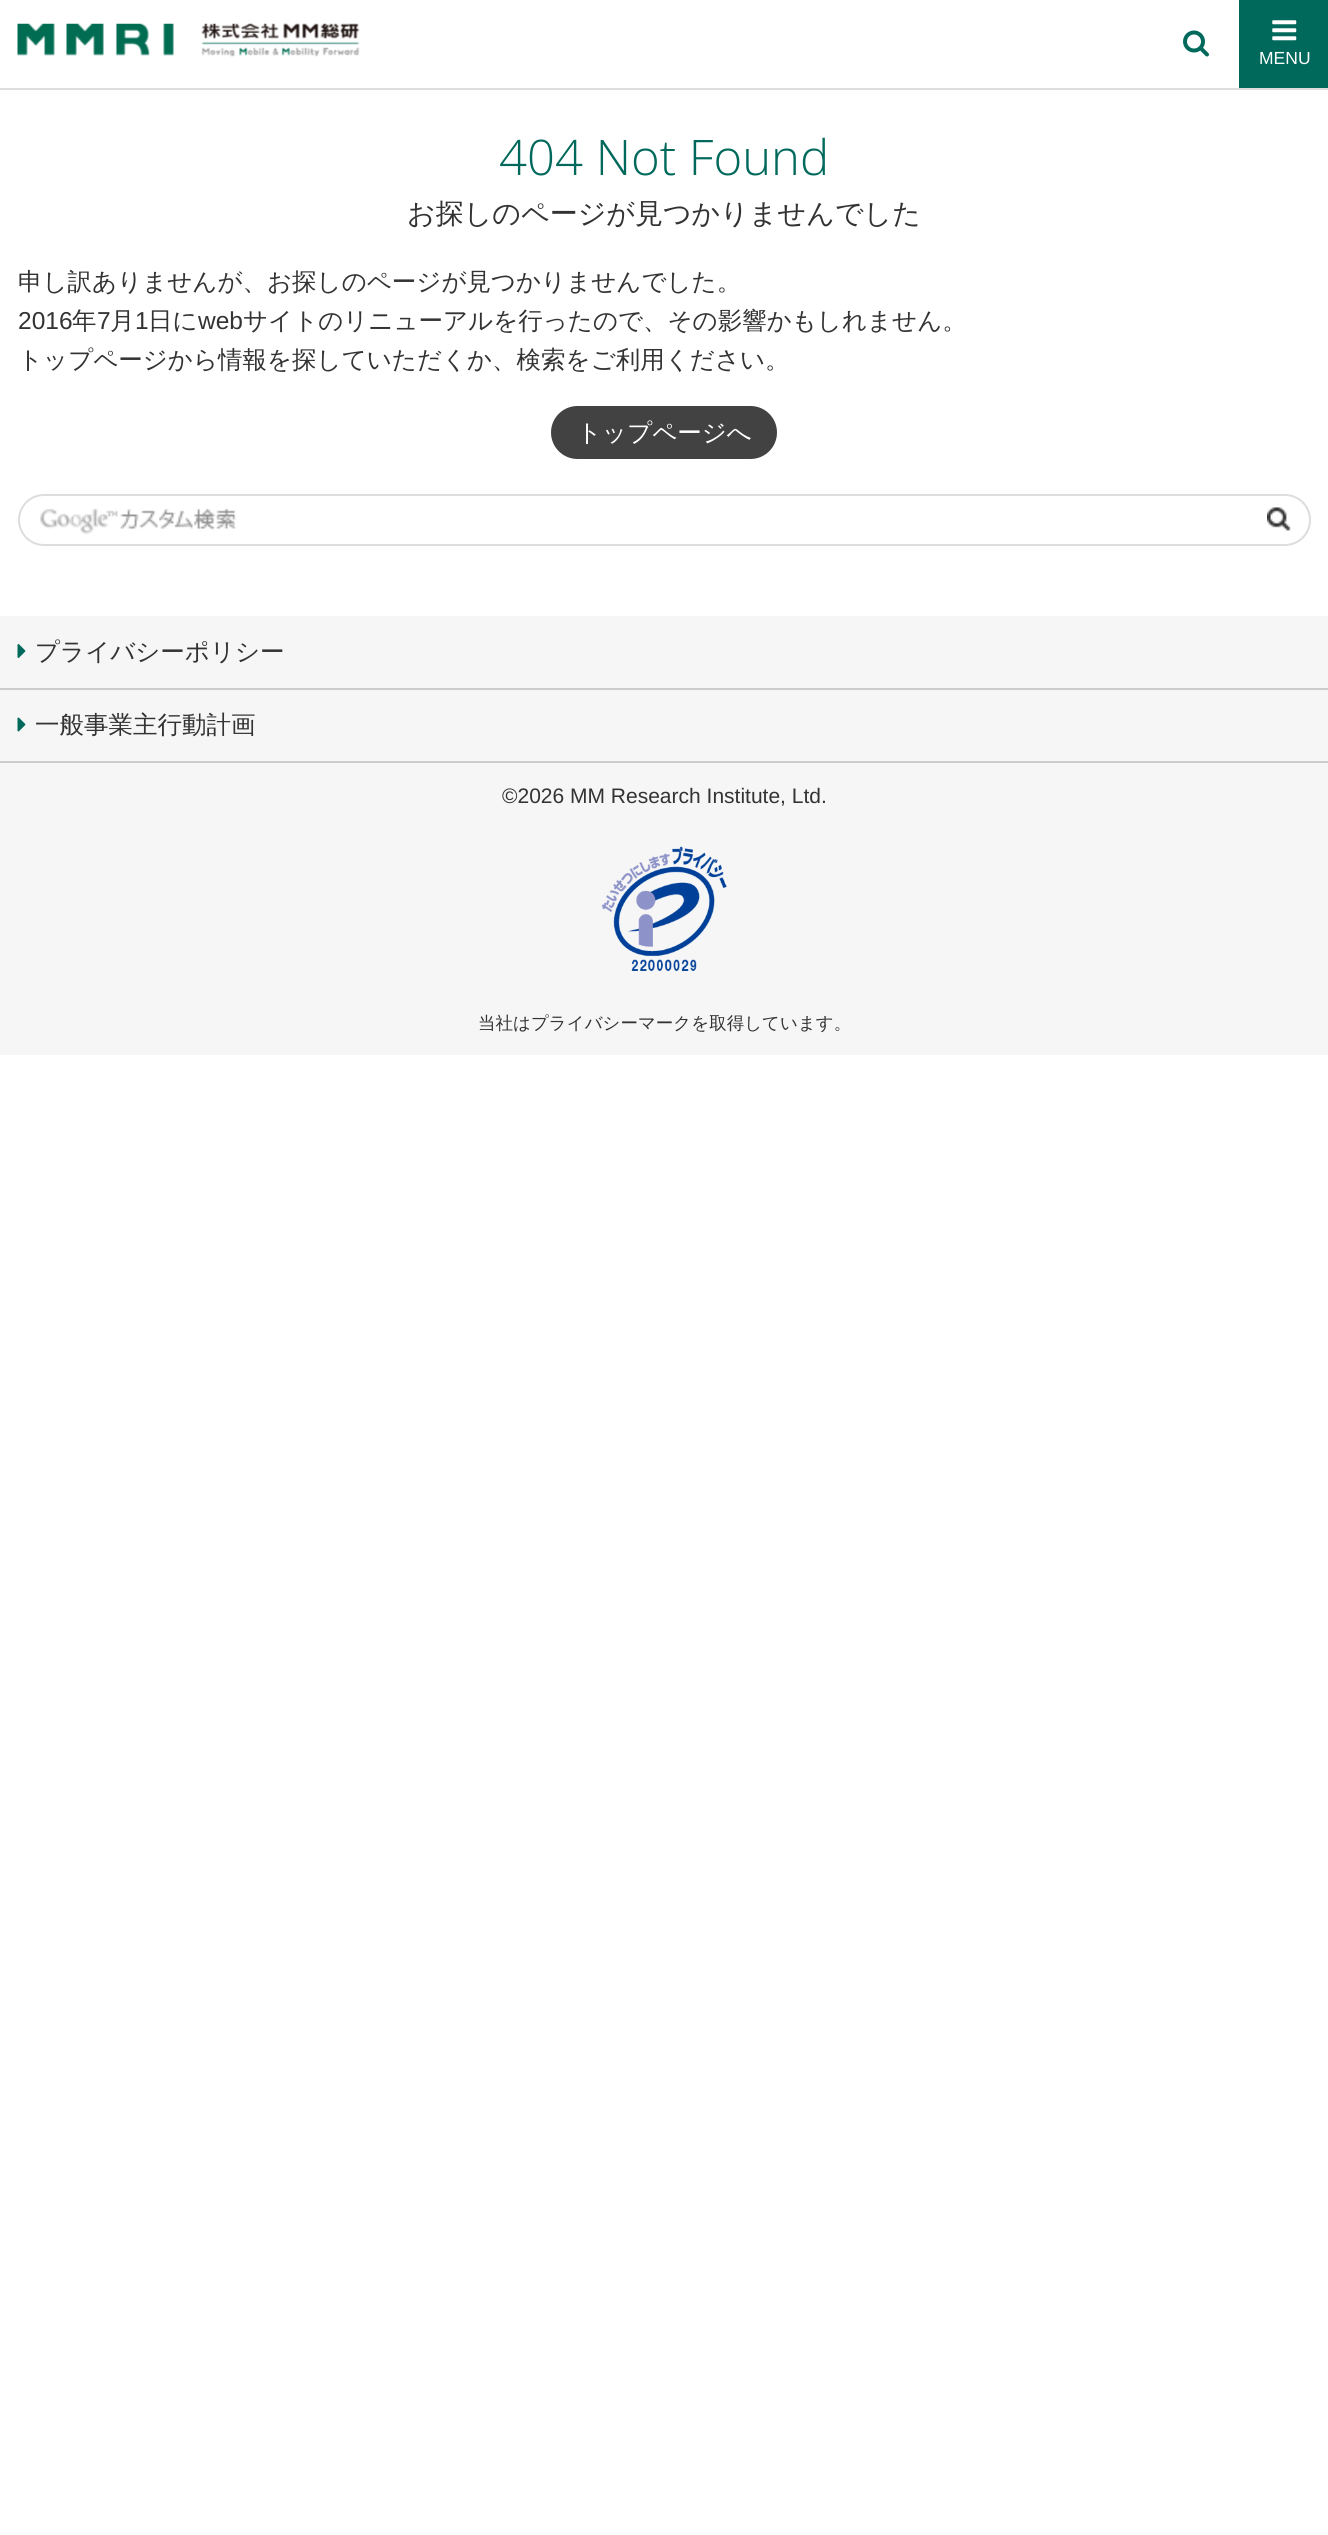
import math
import cairo


def round_path(ctx, x, y, w, h, r):
	ctx.new_sub_path()
	for i, (u, v) in enumerate([(x + w - r, y + h - r), (x + r, y + h - r), (x + r, y + r), (x + w - r, y + r)]):
		ctx.arc(u, v, r, i * math.pi / 2, (i + 1) * math.pi / 2)
	ctx.close_path()

def paste(ctx, path, x, y, w, h):
	ctx.save()
	ctx.set_source_surface(cairo.ImageSurface.create_from_png(path), x, y)
	ctx.rectangle(x, y, w, h)
	ctx.fill()
	ctx.restore()

def draw(ctx):
	ctx.set_source_rgb(1, 1, 1)
	ctx.paint()
	ctx.set_source_rgb(0.867, 0.867, 0.867)
	ctx.rectangle(0, 88, 1328, 2)
	ctx.fill()
	paste(ctx, 'media/1.png', 17, 23, 157, 33)
	paste(ctx, 'media/2.png', 201, 23, 159, 34)
	paste(ctx, 'media/3.png', 1183, 30, 26, 27)
	ctx.set_source_rgb(0, 0.412, 0.361)
	ctx.rectangle(1239, 0, 89, 88)
	ctx.fill()
	paste(ctx, 'media/4.png', 1272, 20, 25, 21)
	ctx.select_font_face('Liberation Sans')
	ctx.set_font_size(17.5)
	ctx.set_source_rgb(1, 1, 1)
	ctx.move_to(1259, 64)
	ctx.show_text('MENU')
	ctx.select_font_face('Open Sans Light')
	ctx.set_font_size(49)
	ctx.set_source_rgb(0, 0.412, 0.361)
	ctx.move_to(499, 175)
	ctx.show_text('404 Not Found')
	ctx.select_font_face('WenQuanYi Zen Hei Medium')
	ctx.set_font_size(28)
	ctx.set_source_rgb(0.2, 0.2, 0.2)
	ctx.move_to(407, 223)
	ctx.show_text('お探しのページが見つかりませんでした')
	ctx.set_font_size(24.5)
	ctx.move_to(18, 290)
	ctx.show_text('申し訳ありませんが、お探しのページが見つかりませんでした。')
	ctx.select_font_face('Liberation Sans')
	ctx.move_to(18, 329)
	ctx.show_text('2016')
	ctx.select_font_face('WenQuanYi Zen Hei Medium')
	ctx.move_to(72, 329)
	ctx.show_text('年')
	ctx.select_font_face('Liberation Sans')
	ctx.move_to(97, 329)
	ctx.show_text('7')
	ctx.select_font_face('WenQuanYi Zen Hei Medium')
	ctx.move_to(110, 329)
	ctx.show_text('月')
	ctx.select_font_face('Liberation Sans')
	ctx.move_to(135, 329)
	ctx.show_text('1')
	ctx.select_font_face('WenQuanYi Zen Hei Medium')
	ctx.move_to(148, 329)
	ctx.show_text('日に')
	ctx.select_font_face('Liberation Sans')
	ctx.move_to(198, 329)
	ctx.show_text('web')
	ctx.select_font_face('WenQuanYi Zen Hei Medium')
	ctx.move_to(243, 329)
	ctx.show_text('サイトのリニューアルを行ったので、その影響かもしれません。')
	ctx.move_to(18, 368)
	ctx.show_text('トップページから情報を探していただくか、検索をご利用ください。')
	ctx.set_source_rgb(0.259, 0.259, 0.259)
	round_path(ctx, 551, 406, 226, 53, 26.5)
	ctx.fill()
	ctx.set_source_rgb(1, 1, 1)
	ctx.move_to(577, 441)
	ctx.show_text('トップページへ')
	paste(ctx, 'media/5.png', 40, 508, 197, 26)
	round_path(ctx, 19, 495, 1291, 50, 25)
	ctx.set_source_rgb(0.867, 0.867, 0.867)
	ctx.stroke()
	paste(ctx, 'media/6.png', 1267, 507, 24, 24)
	ctx.set_source_rgb(0.961, 0.961, 0.961)
	ctx.rectangle(0, 616, 1328, 439)
	ctx.fill()
	ctx.set_source_rgb(0.8, 0.8, 0.8)
	ctx.rectangle(0, 688, 1328, 2)
	ctx.fill()
	paste(ctx, 'media/7.png', 17, 644, 9, 14)
	ctx.set_source_rgb(0.2, 0.2, 0.2)
	ctx.move_to(35, 660)
	ctx.show_text('プライバシーポリシー')
	ctx.set_source_rgb(0.8, 0.8, 0.8)
	ctx.rectangle(0, 761, 1328, 2)
	ctx.fill()
	paste(ctx, 'media/8.png', 17, 717, 9, 15)
	ctx.set_source_rgb(0.2, 0.2, 0.2)
	ctx.move_to(35, 733)
	ctx.show_text('一般事業主行動計画')
	ctx.select_font_face('Liberation Sans')
	ctx.set_font_size(21)
	ctx.move_to(502, 803)
	ctx.show_text('©2026 MM Research Institute, Ltd.')
	paste(ctx, 'media/9.png', 601, 846, 126, 125)
	ctx.select_font_face('WenQuanYi Zen Hei Medium')
	ctx.set_font_size(17.5)
	ctx.move_to(478, 1029)
	ctx.show_text('当社はプライバシーマークを取得しています。')


surface = cairo.ImageSurface(cairo.FORMAT_RGB24, 1328, 2535)
ctx = cairo.Context(surface)
options = cairo.FontOptions()
options.set_hint_metrics(cairo.HINT_METRICS_OFF)
options.set_hint_style(cairo.HINT_STYLE_NONE)
ctx.set_font_options(options)
ctx.set_miter_limit(4)
draw(ctx)
surface.write_to_png('image.png')
